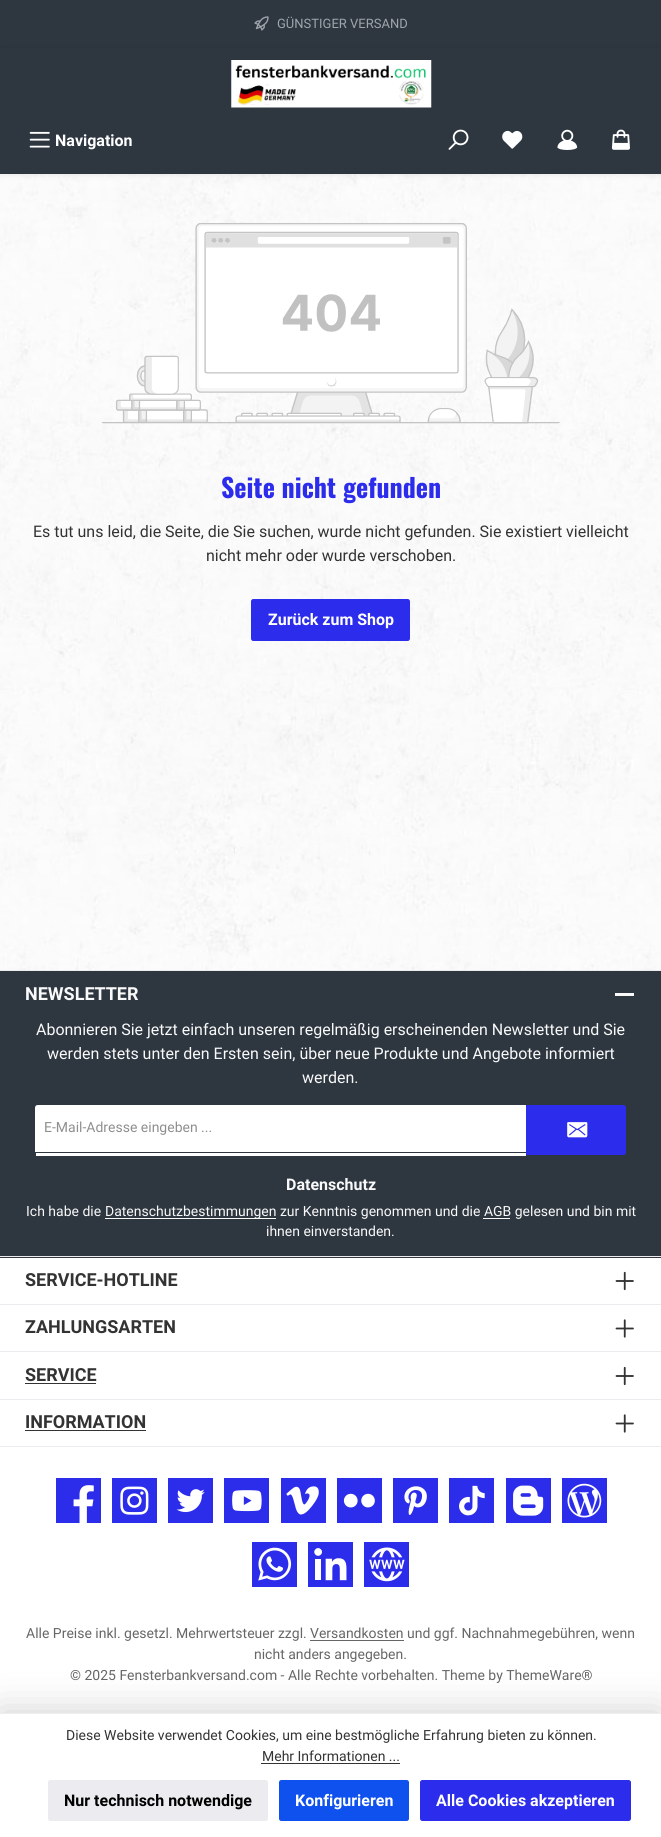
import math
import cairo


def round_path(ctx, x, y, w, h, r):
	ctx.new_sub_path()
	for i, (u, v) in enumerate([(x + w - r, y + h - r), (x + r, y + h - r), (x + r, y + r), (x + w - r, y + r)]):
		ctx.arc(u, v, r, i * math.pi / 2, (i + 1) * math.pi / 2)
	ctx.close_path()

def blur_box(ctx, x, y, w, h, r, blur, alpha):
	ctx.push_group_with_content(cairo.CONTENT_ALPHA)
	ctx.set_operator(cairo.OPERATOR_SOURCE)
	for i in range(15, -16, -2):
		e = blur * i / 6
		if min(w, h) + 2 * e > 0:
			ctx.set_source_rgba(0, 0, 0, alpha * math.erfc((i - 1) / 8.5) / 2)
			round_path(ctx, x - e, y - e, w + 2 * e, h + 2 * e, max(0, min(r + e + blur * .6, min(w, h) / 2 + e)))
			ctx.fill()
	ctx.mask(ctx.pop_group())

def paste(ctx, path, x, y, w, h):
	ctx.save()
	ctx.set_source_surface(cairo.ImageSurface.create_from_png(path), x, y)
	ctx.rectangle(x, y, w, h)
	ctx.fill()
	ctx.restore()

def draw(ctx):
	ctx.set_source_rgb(1, 1, 1)
	ctx.paint()
	paste(ctx, 'media/1.png', 0, 174, 661, 796)
	ctx.set_source_rgb(0.18, 0.216, 0.251)
	ctx.rectangle(0, 0, 661, 48)
	ctx.fill()
	paste(ctx, 'media/2.png', 254, 16, 15, 15)
	ctx.select_font_face('Roboto')
	ctx.set_font_size(13)
	ctx.set_source_rgb(0.624, 0.647, 0.671)
	ctx.move_to(277, 28)
	ctx.show_text('GÜNSTIGER VERSAND')
	ctx.set_source_rgb(0, 0, 0)
	blur_box(ctx, 0, 48, 661, 126, 0, 3, 0.1)
	ctx.set_source_rgb(0.18, 0.216, 0.251)
	ctx.rectangle(0, 48, 661, 126)
	ctx.fill()
	paste(ctx, 'media/3.png', 231, 60, 201, 48)
	paste(ctx, 'media/4.png', 29, 131, 21, 17)
	ctx.select_font_face('Roboto', cairo.FONT_SLANT_NORMAL, cairo.FONT_WEIGHT_BOLD)
	ctx.set_font_size(16)
	ctx.set_source_rgb(1, 1, 1)
	ctx.move_to(55, 146)
	ctx.show_text('Navigation')
	paste(ctx, 'media/5.png', 448, 129, 21, 21)
	paste(ctx, 'media/6.png', 502, 130, 21, 19)
	paste(ctx, 'media/7.png', 557, 129, 21, 21)
	paste(ctx, 'media/8.png', 611, 129, 19, 21)
	paste(ctx, 'media/9.png', 102, 223, 458, 201)
	ctx.select_font_face('Oswald', cairo.FONT_SLANT_NORMAL, cairo.FONT_WEIGHT_BOLD)
	ctx.set_font_size(26)
	ctx.set_source_rgb(0.173, 0.173, 0.922)
	ctx.move_to(221, 498)
	ctx.show_text('Seite nicht gefunden')
	ctx.select_font_face('Roboto')
	ctx.set_font_size(16)
	ctx.set_source_rgb(0.2, 0.2, 0.2)
	ctx.move_to(33, 537)
	ctx.show_text('Es tut uns leid, die Seite, die Sie suchen, wurde nicht gefunden. Sie existiert vielleicht')
	ctx.move_to(206, 561)
	ctx.show_text('nicht mehr oder wurde verschoben.')
	ctx.set_source_rgb(0.173, 0.173, 0.922)
	round_path(ctx, 251.5, 599.5, 158, 41, 2)
	ctx.fill_preserve()
	ctx.set_line_width(1)
	ctx.stroke()
	ctx.select_font_face('Roboto', cairo.FONT_SLANT_NORMAL, cairo.FONT_WEIGHT_BOLD)
	ctx.set_source_rgb(1, 1, 1)
	ctx.move_to(268, 625)
	ctx.show_text('Zurück zum Shop')
	ctx.set_source_rgb(0.18, 0.216, 0.251)
	ctx.rectangle(0, 971, 661, 287)
	ctx.fill()
	ctx.set_source_rgb(0.918, 0.918, 0.941)
	ctx.rectangle(0, 970, 661, 1)
	ctx.rectangle(0, 1256, 661, 1)
	ctx.fill()
	ctx.set_font_size(18)
	ctx.set_source_rgb(0.973, 0.973, 0.98)
	ctx.move_to(25, 1000)
	ctx.show_text('NEWSLETTER')
	ctx.rectangle(615, 993, 19, 3)
	ctx.fill()
	ctx.select_font_face('Roboto')
	ctx.set_font_size(16)
	for x, y, s in [
		(36, 1035, 'Abonnieren Sie jetzt einfach unseren regelmäßig erscheinenden Newsletter und Sie'),
		(47, 1059, 'werden stets unter den Ersten sein, über neue Produkte und Angebote informiert'),
		(302, 1083, 'werden.'),
	]:
		ctx.move_to(x, y)
		ctx.show_text(s)
	ctx.set_source_rgb(1, 1, 1)
	ctx.new_path()
	ctx.move_to(38, 1105)
	ctx.line_to(526, 1105)
	ctx.line_to(526, 1152)
	ctx.line_to(35, 1152)
	ctx.line_to(35, 1108)
	ctx.curve_to(35, 1106, 36, 1105, 38, 1105)
	ctx.close_path()
	ctx.fill()
	ctx.rectangle(36, 1153, 490, 3)
	ctx.fill()
	ctx.set_font_size(14)
	ctx.set_source_rgb(0.557, 0.557, 0.557)
	ctx.move_to(44, 1132)
	ctx.show_text('E-Mail-Adresse eingeben ...')
	ctx.set_source_rgb(0.173, 0.173, 0.922)
	ctx.new_path()
	ctx.move_to(526.5, 1105.5)
	ctx.line_to(623.5, 1105.5)
	ctx.curve_to(624.5, 1105.5, 625.5, 1106.5, 625.5, 1107.5)
	ctx.line_to(625.5, 1152.5)
	ctx.curve_to(625.5, 1153.5, 624.5, 1154.5, 623.5, 1154.5)
	ctx.line_to(526.5, 1154.5)
	ctx.close_path()
	ctx.fill_preserve()
	ctx.stroke()
	paste(ctx, 'media/10.png', 567, 1122, 21, 16)
	ctx.select_font_face('Roboto', cairo.FONT_SLANT_NORMAL, cairo.FONT_WEIGHT_BOLD)
	ctx.set_font_size(16)
	ctx.set_source_rgb(0.973, 0.973, 0.98)
	ctx.move_to(286, 1190)
	ctx.show_text('Datenschutz')
	ctx.select_font_face('Roboto')
	ctx.set_font_size(14)
	ctx.move_to(26, 1216)
	ctx.show_text('Ich habe die')
	ctx.rectangle(105, 1218, 171, 1)
	ctx.fill()
	ctx.move_to(105, 1216)
	ctx.show_text('Datenschutzbestimmungen zur Kenntnis genommen und die AGB gelesen und bin mit')
	ctx.rectangle(483, 1218, 27, 1)
	ctx.fill()
	ctx.move_to(266, 1236)
	ctx.show_text('ihnen einverstanden.')
	ctx.set_source_rgb(0.918, 0.918, 0.941)
	ctx.rectangle(0, 1304, 661, 1)
	ctx.fill()
	ctx.select_font_face('Roboto', cairo.FONT_SLANT_NORMAL, cairo.FONT_WEIGHT_BOLD)
	ctx.set_font_size(18)
	ctx.set_source_rgb(0.2, 0.2, 0.2)
	ctx.move_to(25, 1286)
	ctx.show_text('SERVICE-HOTLINE')
	paste(ctx, 'media/11.png', 615, 1271, 19, 20)
	ctx.set_source_rgb(0.918, 0.918, 0.941)
	ctx.rectangle(0, 1351, 661, 1)
	ctx.fill()
	ctx.set_source_rgb(0.2, 0.2, 0.2)
	ctx.move_to(25, 1333)
	ctx.show_text('ZAHLUNGSARTEN')
	paste(ctx, 'media/12.png', 615, 1319, 19, 19)
	ctx.set_source_rgb(0.918, 0.918, 0.941)
	ctx.rectangle(0, 1399, 661, 1)
	ctx.fill()
	ctx.set_source_rgb(0.2, 0.2, 0.2)
	ctx.move_to(25, 1381)
	ctx.show_text('SERVICE')
	ctx.rectangle(25, 1383, 71, 1)
	ctx.fill()
	paste(ctx, 'media/11.png', 615, 1366, 19, 20)
	ctx.set_source_rgb(0.918, 0.918, 0.941)
	ctx.rectangle(0, 1446, 661, 1)
	ctx.fill()
	ctx.set_source_rgb(0.2, 0.2, 0.2)
	ctx.move_to(25, 1428)
	ctx.show_text('INFORMATION')
	ctx.rectangle(25, 1430, 121, 1)
	ctx.fill()
	paste(ctx, 'media/12.png', 615, 1414, 19, 19)
	paste(ctx, 'media/13.png', 56, 1478, 45, 45)
	paste(ctx, 'media/14.png', 112, 1478, 45, 45)
	paste(ctx, 'media/15.png', 168, 1478, 45, 45)
	paste(ctx, 'media/16.png', 224, 1478, 45, 45)
	paste(ctx, 'media/17.png', 281, 1478, 45, 45)
	paste(ctx, 'media/18.png', 337, 1478, 45, 45)
	paste(ctx, 'media/19.png', 393, 1478, 45, 45)
	paste(ctx, 'media/20.png', 449, 1478, 45, 45)
	paste(ctx, 'media/21.png', 506, 1478, 45, 45)
	paste(ctx, 'media/22.png', 562, 1478, 45, 45)
	paste(ctx, 'media/23.png', 252, 1542, 45, 45)
	paste(ctx, 'media/24.png', 308, 1542, 45, 45)
	paste(ctx, 'media/25.png', 364, 1542, 45, 45)
	ctx.select_font_face('Roboto')
	ctx.set_font_size(14)
	ctx.set_source_rgb(0.4, 0.4, 0.4)
	ctx.move_to(26, 1638)
	ctx.show_text('Alle Preise inkl. gesetzl. Mehrwertsteuer zzgl.')
	ctx.rectangle(310, 1640, 94, 1)
	ctx.fill()
	for x, y, s in [
		(310, 1638, 'Versandkosten und ggf. Nachnahmegebühren, wenn'),
		(254, 1659, 'nicht anders angegeben.'),
		(70, 1680, '© 2025 Fensterbankversand.com - Alle Rechte vorbehalten. Theme by ThemeWare®'),
	]:
		ctx.move_to(x, y)
		ctx.show_text(s)
	ctx.set_source_rgb(0, 0, 0)
	blur_box(ctx, 0, 1713, 661, 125, 0, 19, 0.2)
	ctx.set_source_rgb(1, 1, 1)
	ctx.rectangle(0, 1714, 661, 123)
	ctx.fill()
	ctx.set_source_rgb(0.933, 0.933, 0.933)
	ctx.rectangle(0, 1713, 661, 1)
	ctx.fill()
	ctx.set_source_rgb(0.2, 0.2, 0.2)
	ctx.move_to(66, 1740)
	ctx.show_text('Diese Website verwendet Cookies, um eine bestmögliche Erfahrung bieten zu können.')
	ctx.move_to(262, 1761)
	ctx.show_text('Mehr Informationen ...')
	ctx.rectangle(261, 1763, 139, 1)
	ctx.fill()
	ctx.set_source_rgb(0.918, 0.918, 0.941)
	round_path(ctx, 48.5, 1780.5, 219, 40, 2)
	ctx.fill_preserve()
	ctx.stroke()
	ctx.select_font_face('Roboto', cairo.FONT_SLANT_NORMAL, cairo.FONT_WEIGHT_BOLD)
	ctx.set_font_size(16)
	ctx.set_source_rgb(0, 0, 0)
	ctx.move_to(64, 1806)
	ctx.show_text('Nur technisch notwendige')
	ctx.set_source_rgb(0.055, 0.318, 0.933)
	round_path(ctx, 279.5, 1780.5, 129, 40, 2)
	ctx.fill_preserve()
	ctx.stroke()
	ctx.set_source_rgb(1, 1, 1)
	ctx.move_to(295, 1806)
	ctx.show_text('Konfigurieren')
	ctx.set_source_rgb(0.173, 0.173, 0.922)
	round_path(ctx, 420.5, 1780.5, 210, 40, 2)
	ctx.fill_preserve()
	ctx.stroke()
	ctx.set_source_rgb(1, 1, 1)
	ctx.move_to(436, 1806)
	ctx.show_text('Alle Cookies akzeptieren')


surface = cairo.ImageSurface(cairo.FORMAT_RGB24, 661, 1837)
ctx = cairo.Context(surface)
options = cairo.FontOptions()
options.set_hint_metrics(cairo.HINT_METRICS_OFF)
options.set_hint_style(cairo.HINT_STYLE_NONE)
ctx.set_font_options(options)
ctx.set_miter_limit(4)
draw(ctx)
surface.write_to_png('image.png')
